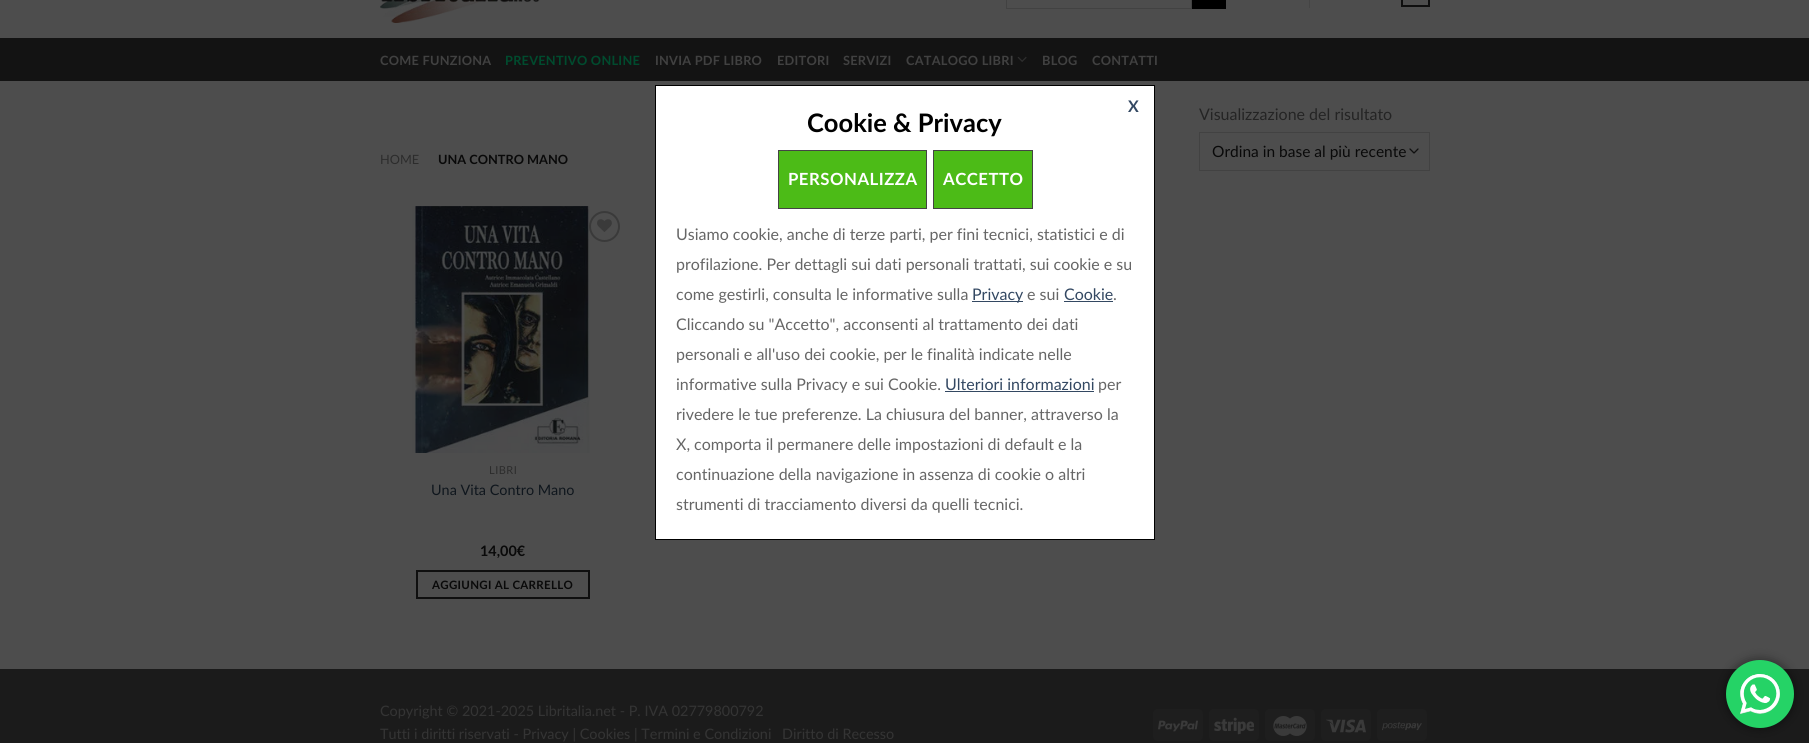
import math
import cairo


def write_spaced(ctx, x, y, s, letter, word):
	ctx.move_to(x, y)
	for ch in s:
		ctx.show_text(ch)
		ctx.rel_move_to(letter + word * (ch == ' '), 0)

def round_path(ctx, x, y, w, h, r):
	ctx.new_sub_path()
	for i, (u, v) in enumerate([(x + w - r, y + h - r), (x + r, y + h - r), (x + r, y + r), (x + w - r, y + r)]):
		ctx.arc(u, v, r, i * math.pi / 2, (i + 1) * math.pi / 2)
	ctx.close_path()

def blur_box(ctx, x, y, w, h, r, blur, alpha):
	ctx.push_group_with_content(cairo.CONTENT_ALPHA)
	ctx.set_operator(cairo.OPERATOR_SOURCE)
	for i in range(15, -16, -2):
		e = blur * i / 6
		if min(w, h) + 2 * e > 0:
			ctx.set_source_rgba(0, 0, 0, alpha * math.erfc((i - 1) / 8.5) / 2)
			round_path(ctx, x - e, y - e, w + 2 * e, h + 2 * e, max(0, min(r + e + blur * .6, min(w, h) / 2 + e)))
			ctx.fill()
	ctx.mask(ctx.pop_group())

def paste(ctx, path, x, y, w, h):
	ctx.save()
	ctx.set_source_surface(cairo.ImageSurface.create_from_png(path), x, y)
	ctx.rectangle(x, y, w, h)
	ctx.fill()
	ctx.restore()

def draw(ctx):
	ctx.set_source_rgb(0.302, 0.302, 0.302)
	ctx.paint()
	paste(ctx, 'media/1.png', 380, 0, 160, 23)
	ctx.rectangle(1006.5, -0.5, 185, 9)
	ctx.set_source_rgb(0.259, 0.259, 0.259)
	ctx.set_line_width(1)
	ctx.stroke()
	ctx.set_source_rgb(0, 0, 0)
	ctx.rectangle(1192, 0, 34, 9)
	ctx.fill()
	ctx.set_source_rgb(0.271, 0.271, 0.271)
	ctx.rectangle(1309, 0, 1, 8)
	ctx.fill()
	ctx.rectangle(1402, -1, 27, 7)
	ctx.set_source_rgb(0.059, 0.059, 0.059)
	ctx.set_line_width(2)
	ctx.stroke()
	ctx.set_source_rgb(0.078, 0.078, 0.078)
	ctx.rectangle(0, 38, 1809, 43)
	ctx.fill()
	ctx.select_font_face('Lato', cairo.FONT_SLANT_NORMAL, cairo.FONT_WEIGHT_BOLD)
	ctx.set_font_size(12.75)
	ctx.set_source_rgb(0.255, 0.255, 0.255)
	write_spaced(ctx, 380, 65, 'COME FUNZIONA', 0.25, 0)
	ctx.set_source_rgb(0, 0.294, 0.18)
	write_spaced(ctx, 505, 65, 'PREVENTIVO ONLINE', 0.25, 0)
	ctx.set_source_rgb(0.255, 0.255, 0.255)
	for x, y, s in [
		(655, 65, 'INVIA PDF LIBRO'),
		(777, 65, 'EDITORI'),
		(843, 65, 'SERVIZI'),
		(906, 65, 'CATALOGO LIBRI'),
	]:
		write_spaced(ctx, x, y, s, 0.25, 0)
	paste(ctx, 'media/2.png', 1017, 56, 10, 6)
	write_spaced(ctx, 1042, 65, 'BLOG', 0.25, 0)
	write_spaced(ctx, 1092, 65, 'CONTATTI', 0.25, 0)
	ctx.select_font_face('Lato')
	ctx.set_source_rgb(0.173, 0.173, 0.173)
	ctx.move_to(380, 164)
	ctx.show_text('HOME')
	ctx.select_font_face('Lato', cairo.FONT_SLANT_NORMAL, cairo.FONT_WEIGHT_BOLD)
	ctx.set_source_rgb(0.039, 0.039, 0.039)
	ctx.move_to(438, 164)
	ctx.show_text('UNA CONTRO MANO')
	ctx.select_font_face('Lato')
	ctx.set_font_size(16)
	ctx.set_source_rgb(0.141, 0.141, 0.141)
	ctx.move_to(1199, 120)
	ctx.show_text('Visualizzazione del risultato')
	ctx.new_path()
	ctx.move_to(1410, 149)
	ctx.line_to(1414, 153)
	ctx.line_to(1418, 149)
	ctx.set_source_rgb(0.059, 0.059, 0.059)
	ctx.set_line_width(1.3)
	ctx.set_line_cap(cairo.LINE_CAP_ROUND)
	ctx.set_line_join(cairo.LINE_JOIN_ROUND)
	ctx.stroke()
	ctx.rectangle(1199.5, 132.5, 230, 38)
	ctx.set_source_rgb(0.259, 0.259, 0.259)
	ctx.set_line_width(1)
	ctx.set_line_cap(cairo.LINE_CAP_BUTT)
	ctx.set_line_join(cairo.LINE_JOIN_MITER)
	ctx.stroke()
	ctx.set_font_size(15.5)
	ctx.set_source_rgb(0.039, 0.039, 0.039)
	ctx.move_to(1212, 157)
	ctx.show_text('Ordina in base al più recente')
	paste(ctx, 'media/3.png', 412, 206, 178, 247)
	ctx.arc(604.5, 226.5, 14.5, 0, 2 * math.pi)
	ctx.set_source_rgb(0.227, 0.227, 0.227)
	ctx.set_line_width(2)
	ctx.stroke()
	paste(ctx, 'media/4.png', 597, 219, 15, 13)
	ctx.set_font_size(11)
	ctx.set_source_rgb(0.173, 0.173, 0.173)
	write_spaced(ctx, 489, 474, 'LIBRI', 0.5, 0)
	ctx.set_font_size(14.4)
	ctx.set_source_rgb(0.059, 0.086, 0.114)
	ctx.move_to(431, 495)
	ctx.show_text('Una Vita Contro Mano')
	ctx.select_font_face('Lato', cairo.FONT_SLANT_NORMAL, cairo.FONT_WEIGHT_BOLD)
	ctx.set_source_rgb(0.039, 0.039, 0.039)
	ctx.move_to(480, 556)
	ctx.show_text('14,00€')
	ctx.rectangle(417, 571, 172, 27)
	ctx.set_source_rgb(0.059, 0.059, 0.059)
	ctx.stroke()
	ctx.set_font_size(11.5)
	ctx.set_source_rgb(0.039, 0.039, 0.039)
	write_spaced(ctx, 432, 589, 'AGGIUNGI AL CARRELLO', 0.3, 0)
	ctx.set_source_rgb(0.106, 0.106, 0.106)
	ctx.rectangle(0, 669, 1809, 74)
	ctx.fill()
	ctx.select_font_face('Lato')
	ctx.set_font_size(14.4)
	ctx.set_source_rgb(0.204, 0.204, 0.204)
	for x, y, s in [
		(380, 716, 'Copyright © 2021-2025 Libritalia.net - P. IVA 02779800792'),
		(380, 739, 'Tutti i diritti riservati - Privacy | Cookies | Termini e Condizioni'),
		(782, 739, 'Diritto di Recesso'),
	]:
		ctx.move_to(x, y)
		ctx.show_text(s)
	ctx.set_source_rgb(0.118, 0.118, 0.118)
	round_path(ctx, 1153, 709, 50, 32, 5)
	ctx.fill()
	paste(ctx, 'media/5.png', 1158, 720, 40, 12)
	round_path(ctx, 1209, 709, 50, 32, 5)
	ctx.fill()
	paste(ctx, 'media/6.png', 1214, 717, 40, 18)
	round_path(ctx, 1265, 709, 50, 32, 5)
	ctx.fill()
	paste(ctx, 'media/7.png', 1273, 716, 34, 20)
	round_path(ctx, 1321, 709, 50, 32, 5)
	ctx.fill()
	paste(ctx, 'media/8.png', 1326, 719, 40, 14)
	round_path(ctx, 1377, 709, 50, 32, 5)
	ctx.fill()
	paste(ctx, 'media/9.png', 1382, 722, 40, 9)
	ctx.set_source_rgb(1, 1, 1)
	ctx.rectangle(655.5, 85.5, 499, 454)
	ctx.fill_preserve()
	ctx.set_source_rgb(0, 0, 0)
	ctx.set_line_width(1)
	ctx.stroke()
	ctx.select_font_face('Lato', cairo.FONT_SLANT_NORMAL, cairo.FONT_WEIGHT_BOLD)
	ctx.set_font_size(16)
	ctx.set_source_rgb(0.2, 0.282, 0.384)
	ctx.move_to(1128, 112)
	ctx.show_text('X')
	ctx.set_font_size(25.5)
	ctx.set_source_rgb(0, 0, 0)
	ctx.move_to(807, 132)
	ctx.show_text('Cookie & Privacy')
	ctx.set_source_rgb(0.298, 0.733, 0.09)
	ctx.rectangle(778.5, 150.5, 148, 58)
	ctx.fill_preserve()
	ctx.set_source_rgb(0.267, 0.267, 0.267)
	ctx.stroke()
	ctx.set_font_size(16.75)
	ctx.set_source_rgb(1, 1, 1)
	write_spaced(ctx, 788, 185, 'PERSONALIZZA', 0.5, 0)
	ctx.set_source_rgb(0.298, 0.733, 0.09)
	ctx.rectangle(933.5, 150.5, 99, 58)
	ctx.fill_preserve()
	ctx.set_source_rgb(0.267, 0.267, 0.267)
	ctx.stroke()
	ctx.set_source_rgb(1, 1, 1)
	write_spaced(ctx, 943, 185, 'ACCETTO', 0.5, 0)
	ctx.select_font_face('Lato')
	ctx.set_font_size(16)
	ctx.set_source_rgb(0.4, 0.4, 0.4)
	for x, y, s in [
		(676, 240, 'Usiamo cookie, anche di terze parti, per fini tecnici, statistici e di'),
		(676, 270, 'profilazione. Per dettagli sui dati personali trattati, sui cookie e su'),
		(676, 300, 'come gestirli, consulta le informative sulla'),
	]:
		ctx.move_to(x, y)
		ctx.show_text(s)
	ctx.set_source_rgb(0.2, 0.282, 0.384)
	ctx.rectangle(972, 301, 51, 1)
	ctx.fill()
	ctx.move_to(972, 300)
	ctx.show_text('Privacy')
	ctx.set_source_rgb(0.4, 0.4, 0.4)
	ctx.move_to(1027, 300)
	ctx.show_text('e sui')
	ctx.set_source_rgb(0.2, 0.282, 0.384)
	ctx.move_to(1064, 300)
	ctx.show_text('Cookie')
	ctx.rectangle(1064, 301, 49, 1)
	ctx.fill()
	ctx.set_source_rgb(0.4, 0.4, 0.4)
	for x, y, s in [
		(1113, 300, '.'),
		(676, 330, 'Cliccando su "Accetto", acconsenti al trattamento dei dati'),
		(676, 360, 'personali e all\'uso dei cookie, per le finalità indicate nelle'),
		(676, 390, 'informative sulla Privacy e sui Cookie.'),
	]:
		ctx.move_to(x, y)
		ctx.show_text(s)
	ctx.set_source_rgb(0.2, 0.282, 0.384)
	ctx.move_to(945, 390)
	ctx.show_text('Ulteriori informazioni')
	ctx.rectangle(945, 391, 149, 1)
	ctx.fill()
	ctx.set_source_rgb(0.4, 0.4, 0.4)
	for x, y, s in [
		(1098, 390, 'per'),
		(676, 420, 'rivedere le tue preferenze. La chiusura del banner, attraverso la'),
		(676, 450, 'X, comporta il permanere delle impostazioni di default e la'),
		(676, 480, 'continuazione della navigazione in assenza di cookie o altri'),
		(676, 510, 'strumenti di tracciamento diversi da quelli tecnici.'),
	]:
		ctx.move_to(x, y)
		ctx.show_text(s)
	ctx.set_source_rgb(0, 0, 0)
	blur_box(ctx, 1726, 660, 68, 68, 34, 5.5, 0.5)
	ctx.set_source_rgb(0.145, 0.827, 0.4)
	ctx.arc(1760, 694, 34, 0, 2 * math.pi)
	ctx.fill()
	paste(ctx, 'media/10.png', 1740, 674, 40, 40)


surface = cairo.ImageSurface(cairo.FORMAT_RGB24, 1809, 743)
ctx = cairo.Context(surface)
options = cairo.FontOptions()
options.set_hint_metrics(cairo.HINT_METRICS_OFF)
options.set_hint_style(cairo.HINT_STYLE_NONE)
ctx.set_font_options(options)
ctx.set_miter_limit(4)
draw(ctx)
surface.write_to_png('image.png')
